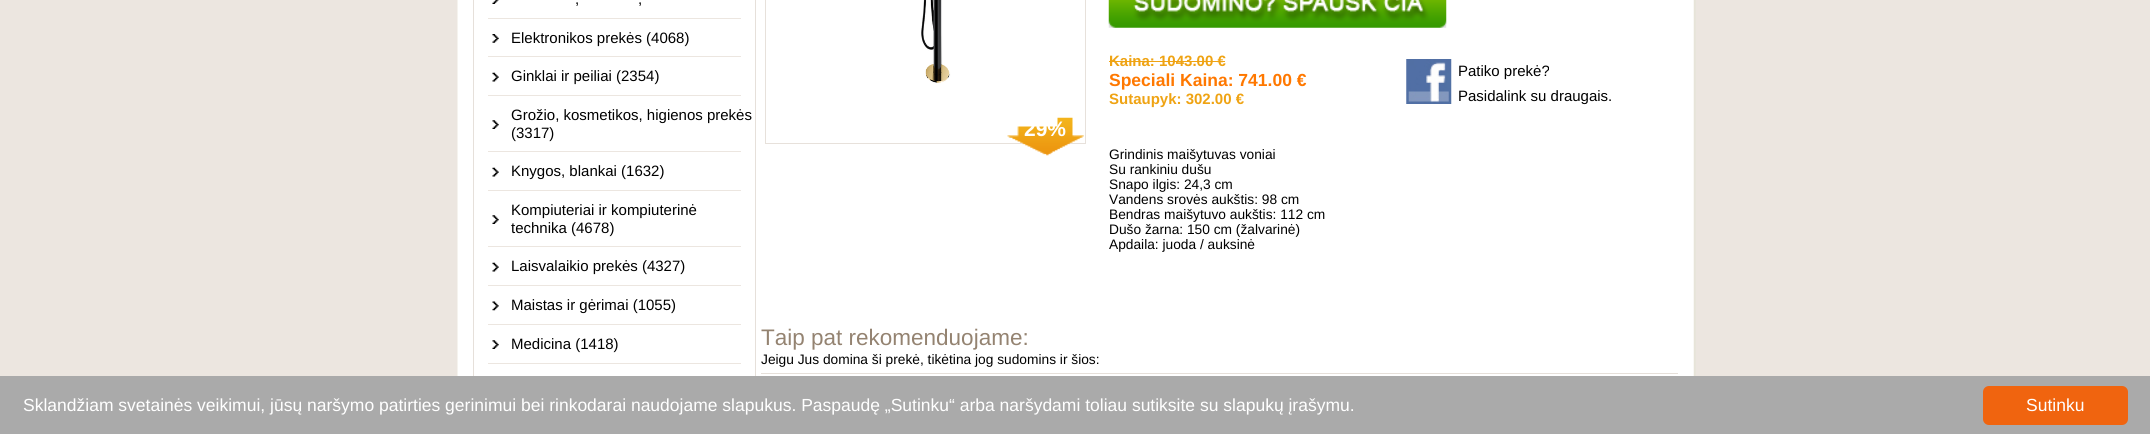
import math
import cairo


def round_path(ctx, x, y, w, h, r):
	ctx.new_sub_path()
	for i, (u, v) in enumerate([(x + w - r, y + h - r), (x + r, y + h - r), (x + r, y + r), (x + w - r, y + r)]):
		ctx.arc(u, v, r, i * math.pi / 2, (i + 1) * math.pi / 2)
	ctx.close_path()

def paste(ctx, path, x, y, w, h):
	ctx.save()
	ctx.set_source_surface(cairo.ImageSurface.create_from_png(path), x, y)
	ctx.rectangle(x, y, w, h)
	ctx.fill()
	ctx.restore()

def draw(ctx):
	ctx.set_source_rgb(0.922, 0.902, 0.878)
	ctx.paint()
	paste(ctx, 'media/1.png', 457, 0, 1239, 376)
	ctx.set_source_rgb(0.902, 0.878, 0.855)
	ctx.rectangle(755, 0, 1, 376)
	ctx.fill()
	ctx.rectangle(473, 0, 1, 376)
	ctx.fill()
	paste(ctx, 'media/2.png', 492, 0, 7, 4)
	ctx.select_font_face('Liberation Sans')
	ctx.set_font_size(15)
	ctx.set_source_rgb(0, 0, 0)
	ctx.move_to(575, 4)
	ctx.show_text(',')
	ctx.move_to(638, 4)
	ctx.show_text(',')
	ctx.set_source_rgb(0.922, 0.902, 0.878)
	ctx.rectangle(488, 18, 253, 1)
	ctx.fill()
	paste(ctx, 'media/3.png', 492, 34, 7, 9)
	ctx.set_source_rgb(0, 0, 0)
	ctx.move_to(511, 43)
	ctx.show_text('Elektronikos prekės (4068)')
	ctx.set_source_rgb(0.922, 0.902, 0.878)
	ctx.rectangle(488, 56, 253, 1)
	ctx.fill()
	paste(ctx, 'media/4.png', 492, 72, 7, 10)
	ctx.set_source_rgb(0, 0, 0)
	ctx.move_to(511, 81)
	ctx.show_text('Ginklai ir peiliai (2354)')
	ctx.set_source_rgb(0.922, 0.902, 0.878)
	ctx.rectangle(488, 95, 253, 1)
	ctx.fill()
	paste(ctx, 'media/5.png', 492, 120, 7, 9)
	ctx.set_source_rgb(0, 0, 0)
	ctx.move_to(511, 120)
	ctx.show_text('Grožio, kosmetikos, higienos prekės')
	ctx.move_to(511, 138)
	ctx.show_text('(3317)')
	ctx.set_source_rgb(0.922, 0.902, 0.878)
	ctx.rectangle(488, 151, 253, 1)
	ctx.fill()
	paste(ctx, 'media/4.png', 492, 167, 7, 10)
	ctx.set_source_rgb(0, 0, 0)
	ctx.move_to(511, 176)
	ctx.show_text('Knygos, blankai (1632)')
	ctx.set_source_rgb(0.922, 0.902, 0.878)
	ctx.rectangle(488, 190, 253, 1)
	ctx.fill()
	paste(ctx, 'media/5.png', 492, 215, 7, 9)
	ctx.set_source_rgb(0, 0, 0)
	ctx.move_to(511, 215)
	ctx.show_text('Kompiuteriai ir kompiuterinė')
	ctx.move_to(511, 233)
	ctx.show_text('technika (4678)')
	ctx.set_source_rgb(0.922, 0.902, 0.878)
	ctx.rectangle(488, 246, 253, 1)
	ctx.fill()
	paste(ctx, 'media/4.png', 492, 262, 7, 10)
	ctx.set_source_rgb(0, 0, 0)
	ctx.move_to(511, 271)
	ctx.show_text('Laisvalaikio prekės (4327)')
	ctx.set_source_rgb(0.922, 0.902, 0.878)
	ctx.rectangle(488, 285, 253, 1)
	ctx.fill()
	paste(ctx, 'media/6.png', 492, 301, 7, 10)
	ctx.set_source_rgb(0, 0, 0)
	ctx.move_to(511, 310)
	ctx.show_text('Maistas ir gėrimai (1055)')
	ctx.set_source_rgb(0.922, 0.902, 0.878)
	ctx.rectangle(488, 324, 253, 1)
	ctx.fill()
	paste(ctx, 'media/5.png', 492, 340, 7, 9)
	ctx.set_source_rgb(0, 0, 0)
	ctx.move_to(511, 349)
	ctx.show_text('Medicina (1418)')
	ctx.set_source_rgb(0.922, 0.902, 0.878)
	ctx.rectangle(488, 363, 253, 1)
	ctx.fill()
	ctx.rectangle(765.5, -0.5, 320, 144)
	ctx.set_source_rgb(0.906, 0.882, 0.859)
	ctx.set_line_width(1)
	ctx.stroke()
	paste(ctx, 'media/8.png', 1007, 117, 77, 39)
	ctx.select_font_face('Liberation Sans', cairo.FONT_SLANT_NORMAL, cairo.FONT_WEIGHT_BOLD)
	ctx.set_font_size(21)
	ctx.set_source_rgb(1, 1, 1)
	ctx.move_to(1024, 136)
	ctx.show_text('29%')
	paste(ctx, 'media/7.png', 921, 0, 137, 127)
	paste(ctx, 'media/9.png', 1108, 0, 339, 28)
	ctx.set_font_size(15)
	ctx.set_source_rgb(0.937, 0.639, 0.078)
	ctx.move_to(1109, 66)
	ctx.show_text('Kaina: 1043.00 €')
	ctx.rectangle(1109, 61, 116, 1)
	ctx.fill()
	ctx.set_font_size(17.5)
	ctx.set_source_rgb(1, 0.471, 0)
	ctx.move_to(1109, 86)
	ctx.show_text('Speciali Kaina: 741.00 €')
	paste(ctx, 'media/10.png', 1406, 59, 46, 45)
	ctx.select_font_face('Liberation Sans')
	ctx.set_font_size(15)
	ctx.set_source_rgb(0, 0, 0)
	ctx.move_to(1458, 76)
	ctx.show_text('Patiko prekė?')
	ctx.move_to(1458, 101)
	ctx.show_text('Pasidalink su draugais.')
	ctx.select_font_face('Liberation Sans', cairo.FONT_SLANT_NORMAL, cairo.FONT_WEIGHT_BOLD)
	ctx.set_source_rgb(0.937, 0.639, 0.078)
	ctx.move_to(1109, 104)
	ctx.show_text('Sutaupyk: 302.00 €')
	ctx.select_font_face('Liberation Sans')
	ctx.set_font_size(13.75)
	ctx.set_source_rgb(0, 0, 0)
	for x, y, s in [
		(1109, 159, 'Grindinis maišytuvas voniai'),
		(1109, 174, 'Su rankiniu dušu'),
		(1109, 189, 'Snapo ilgis: 24,3 cm'),
		(1109, 204, 'Vandens srovės aukštis: 98 cm'),
		(1109, 219, 'Bendras maišytuvo aukštis: 112 cm'),
		(1109, 234, 'Dušo žarna: 150 cm (žalvarinė)'),
		(1109, 249, 'Apdaila: juoda / auksinė'),
	]:
		ctx.move_to(x, y)
		ctx.show_text(s)
	ctx.set_source_rgb(0.902, 0.878, 0.855)
	ctx.rectangle(761, 373, 917, 1)
	ctx.fill()
	ctx.set_font_size(22.5)
	ctx.set_source_rgb(0.58, 0.514, 0.443)
	ctx.move_to(761, 345)
	ctx.show_text('Taip pat rekomenduojame:')
	ctx.set_font_size(13.75)
	ctx.set_source_rgb(0, 0, 0)
	ctx.move_to(761, 364)
	ctx.show_text('Jeigu Jus domina ši prekė, tikėtina jog sudomins ir šios:')
	ctx.set_source_rgb(0.667, 0.667, 0.667)
	ctx.rectangle(0, 376, 2150, 58)
	ctx.fill()
	ctx.set_font_size(17.5)
	ctx.set_source_rgb(1, 1, 1)
	ctx.move_to(23, 411)
	ctx.show_text('Sklandžiam svetainės veikimui, jūsų naršymo patirties gerinimui bei rinkodarai naudojame slapukus. Paspaudę „Sutinku“ arba naršydami toliau sutiksite su slapukų įrašymu.')
	ctx.set_source_rgb(0.941, 0.392, 0.059)
	round_path(ctx, 1983, 386, 145, 39, 6)
	ctx.fill()
	ctx.set_source_rgb(1, 1, 1)
	ctx.move_to(2026, 411)
	ctx.show_text('Sutinku')


surface = cairo.ImageSurface(cairo.FORMAT_RGB24, 2150, 434)
ctx = cairo.Context(surface)
options = cairo.FontOptions()
options.set_hint_metrics(cairo.HINT_METRICS_OFF)
options.set_hint_style(cairo.HINT_STYLE_NONE)
ctx.set_font_options(options)
ctx.set_miter_limit(4)
draw(ctx)
surface.write_to_png('image.png')
